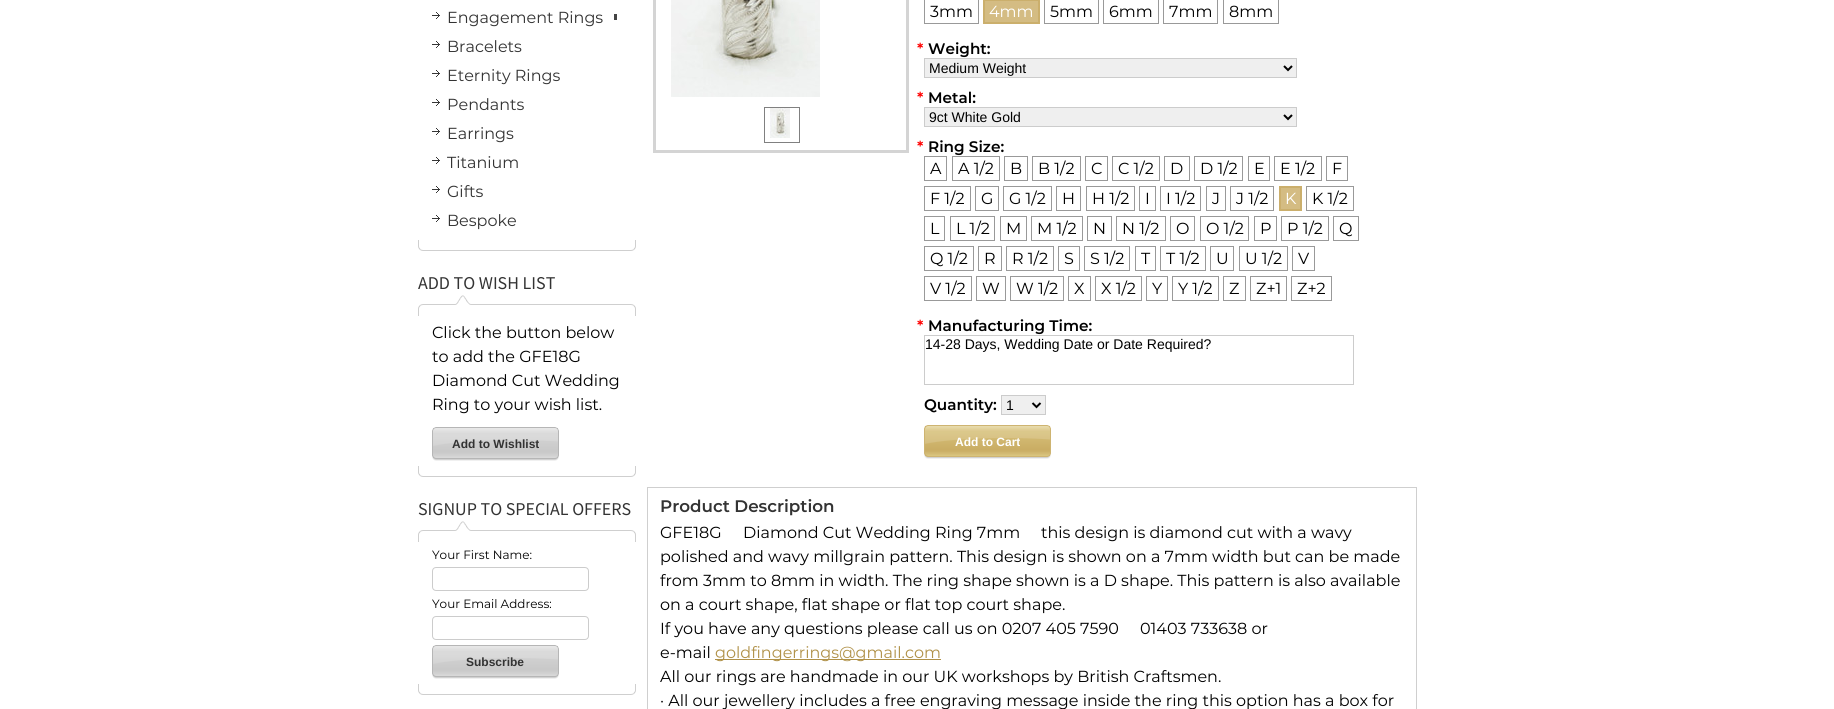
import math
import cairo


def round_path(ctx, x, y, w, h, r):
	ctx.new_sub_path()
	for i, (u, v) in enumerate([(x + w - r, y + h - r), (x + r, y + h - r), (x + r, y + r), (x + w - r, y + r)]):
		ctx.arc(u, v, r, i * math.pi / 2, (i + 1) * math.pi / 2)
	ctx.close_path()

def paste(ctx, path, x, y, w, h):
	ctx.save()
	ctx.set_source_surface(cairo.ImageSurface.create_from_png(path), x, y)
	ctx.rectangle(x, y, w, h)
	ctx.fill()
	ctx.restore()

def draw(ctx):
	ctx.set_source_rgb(1, 1, 1)
	ctx.paint()
	paste(ctx, 'media/1.png', 418, 240, 218, 11)
	paste(ctx, 'media/2.png', 432, 12, 8, 7)
	ctx.select_font_face('Montserrat')
	ctx.set_font_size(16)
	ctx.set_source_rgb(0.2, 0.2, 0.2)
	ctx.move_to(447, 23)
	ctx.show_text('Engagement Rings')
	ctx.set_source_rgb(0.267, 0.267, 0.267)
	ctx.rectangle(614, 14, 3, 6)
	ctx.fill()
	paste(ctx, 'media/2.png', 432, 41, 8, 7)
	ctx.set_source_rgb(0.2, 0.2, 0.2)
	ctx.move_to(447, 52)
	ctx.show_text('Bracelets')
	paste(ctx, 'media/2.png', 432, 70, 8, 7)
	ctx.move_to(447, 81)
	ctx.show_text('Eternity Rings')
	paste(ctx, 'media/2.png', 432, 99, 8, 7)
	ctx.move_to(447, 110)
	ctx.show_text('Pendants')
	paste(ctx, 'media/2.png', 432, 128, 8, 7)
	ctx.move_to(447, 139)
	ctx.show_text('Earrings')
	paste(ctx, 'media/2.png', 432, 157, 8, 7)
	ctx.move_to(447, 168)
	ctx.show_text('Titanium')
	paste(ctx, 'media/2.png', 432, 186, 8, 7)
	ctx.move_to(447, 197)
	ctx.show_text('Gifts')
	paste(ctx, 'media/2.png', 432, 215, 8, 7)
	ctx.move_to(447, 226)
	ctx.show_text('Bespoke')
	paste(ctx, 'media/1.png', 418, 466, 218, 11)
	paste(ctx, 'media/3.png', 418, 295, 218, 21)
	ctx.select_font_face('Source Sans Pro')
	ctx.set_font_size(18)
	ctx.move_to(418, 289)
	ctx.show_text('ADD TO WISH LIST')
	ctx.select_font_face('Montserrat')
	ctx.set_font_size(16)
	ctx.set_source_rgb(0, 0, 0)
	for x, y, s in [
		(432, 338, 'Click the button below'),
		(432, 362, 'to add the GFE18G'),
		(432, 386, 'Diamond Cut Wedding'),
		(432, 410, 'Ring to your wish list.'),
	]:
		ctx.move_to(x, y)
		ctx.show_text(s)
	paste(ctx, 'media/4.png', 432, 427, 127, 34)
	ctx.select_font_face('Liberation Sans', cairo.FONT_SLANT_NORMAL, cairo.FONT_WEIGHT_BOLD)
	ctx.set_font_size(12)
	ctx.set_source_rgb(0.2, 0.2, 0.2)
	ctx.move_to(452, 448)
	ctx.show_text('Add to Wishlist')
	paste(ctx, 'media/1.png', 418, 684, 218, 11)
	paste(ctx, 'media/3.png', 418, 521, 218, 21)
	ctx.select_font_face('Source Sans Pro')
	ctx.set_font_size(18)
	ctx.move_to(418, 515)
	ctx.show_text('SIGNUP TO SPECIAL OFFERS')
	ctx.select_font_face('Montserrat')
	ctx.set_font_size(12)
	ctx.set_source_rgb(0, 0, 0)
	ctx.move_to(432, 559)
	ctx.show_text('Your First Name:')
	round_path(ctx, 432.5, 567.5, 156, 23, 3.5)
	ctx.set_source_rgb(0.8, 0.8, 0.8)
	ctx.set_line_width(1)
	ctx.stroke()
	ctx.set_source_rgb(0, 0, 0)
	ctx.move_to(432, 608)
	ctx.show_text('Your Email Address:')
	round_path(ctx, 432.5, 616.5, 156, 23, 3.5)
	ctx.set_source_rgb(0.8, 0.8, 0.8)
	ctx.stroke()
	paste(ctx, 'media/4.png', 432, 645, 127, 34)
	ctx.select_font_face('Liberation Sans', cairo.FONT_SLANT_NORMAL, cairo.FONT_WEIGHT_BOLD)
	ctx.set_source_rgb(0.2, 0.2, 0.2)
	ctx.move_to(466, 666)
	ctx.show_text('Subscribe')
	ctx.rectangle(654.5, -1.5, 253, 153)
	ctx.set_source_rgb(0.831, 0.831, 0.831)
	ctx.set_line_width(3)
	ctx.stroke()
	paste(ctx, 'media/5.png', 671, 0, 149, 97)
	ctx.rectangle(764.5, 107.5, 35, 35)
	ctx.set_source_rgb(0.502, 0.502, 0.502)
	ctx.set_line_width(1)
	ctx.stroke()
	paste(ctx, 'media/6.png', 770, 108, 20, 30)
	ctx.rectangle(924.5, -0.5, 54, 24)
	ctx.set_source_rgb(0.6, 0.6, 0.6)
	ctx.stroke()
	ctx.select_font_face('Montserrat')
	ctx.set_font_size(16)
	ctx.set_source_rgb(0, 0, 0)
	ctx.move_to(930, 17)
	ctx.show_text('3mm')
	ctx.set_source_rgb(0.831, 0.737, 0.514)
	ctx.rectangle(984, 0, 55, 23)
	ctx.fill_preserve()
	ctx.set_source_rgb(0.796, 0.686, 0.424)
	ctx.set_line_width(2)
	ctx.stroke()
	ctx.set_source_rgb(1, 1, 1)
	ctx.move_to(989, 17)
	ctx.show_text('4mm')
	ctx.rectangle(1044.5, -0.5, 54, 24)
	ctx.set_source_rgb(0.6, 0.6, 0.6)
	ctx.set_line_width(1)
	ctx.stroke()
	ctx.set_source_rgb(0, 0, 0)
	ctx.move_to(1050, 17)
	ctx.show_text('5mm')
	ctx.rectangle(1103.5, -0.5, 55, 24)
	ctx.set_source_rgb(0.6, 0.6, 0.6)
	ctx.stroke()
	ctx.set_source_rgb(0, 0, 0)
	ctx.move_to(1109, 17)
	ctx.show_text('6mm')
	ctx.rectangle(1163.5, -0.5, 54, 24)
	ctx.set_source_rgb(0.6, 0.6, 0.6)
	ctx.stroke()
	ctx.set_source_rgb(0, 0, 0)
	ctx.move_to(1169, 17)
	ctx.show_text('7mm')
	ctx.rectangle(1223.5, -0.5, 55, 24)
	ctx.set_source_rgb(0.6, 0.6, 0.6)
	ctx.stroke()
	ctx.set_source_rgb(0, 0, 0)
	ctx.move_to(1229, 17)
	ctx.show_text('8mm')
	ctx.select_font_face('Montserrat SemiBold')
	ctx.set_font_size(15.25)
	ctx.set_source_rgb(1, 0, 0)
	ctx.move_to(917, 54)
	ctx.show_text('*')
	ctx.set_source_rgb(0, 0, 0)
	ctx.move_to(928, 54)
	ctx.show_text('Weight:')
	ctx.set_source_rgb(0.937, 0.937, 0.937)
	ctx.rectangle(924.5, 58.5, 372, 19)
	ctx.fill_preserve()
	ctx.set_source_rgb(0.8, 0.8, 0.8)
	ctx.stroke()
	ctx.new_path()
	ctx.move_to(1284, 66)
	ctx.line_to(1288, 70)
	ctx.line_to(1292, 66)
	ctx.set_source_rgb(0, 0, 0)
	ctx.set_line_width(2)
	ctx.stroke()
	ctx.select_font_face('Liberation Sans')
	ctx.set_font_size(14)
	ctx.move_to(929, 73)
	ctx.show_text('Medium Weight')
	ctx.select_font_face('Montserrat SemiBold')
	ctx.set_font_size(15.25)
	ctx.set_source_rgb(1, 0, 0)
	ctx.move_to(917, 103)
	ctx.show_text('*')
	ctx.set_source_rgb(0, 0, 0)
	ctx.move_to(928, 103)
	ctx.show_text('Metal:')
	ctx.set_source_rgb(0.937, 0.937, 0.937)
	ctx.rectangle(924.5, 107.5, 372, 19)
	ctx.fill_preserve()
	ctx.set_source_rgb(0.8, 0.8, 0.8)
	ctx.set_line_width(1)
	ctx.stroke()
	ctx.new_path()
	ctx.move_to(1284, 115)
	ctx.line_to(1288, 119)
	ctx.line_to(1292, 115)
	ctx.set_source_rgb(0, 0, 0)
	ctx.set_line_width(2)
	ctx.stroke()
	ctx.select_font_face('Liberation Sans')
	ctx.set_font_size(14)
	ctx.move_to(929, 122)
	ctx.show_text('9ct White Gold')
	ctx.select_font_face('Montserrat SemiBold')
	ctx.set_font_size(15.25)
	ctx.set_source_rgb(1, 0, 0)
	ctx.move_to(917, 152)
	ctx.show_text('*')
	ctx.set_source_rgb(0, 0, 0)
	ctx.move_to(928, 152)
	ctx.show_text('Ring Size:')
	ctx.rectangle(924.5, 156.5, 22, 24)
	ctx.set_source_rgb(0.6, 0.6, 0.6)
	ctx.set_line_width(1)
	ctx.stroke()
	ctx.select_font_face('Montserrat')
	ctx.set_font_size(16)
	ctx.set_source_rgb(0, 0, 0)
	ctx.move_to(930, 174)
	ctx.show_text('A')
	ctx.rectangle(952.5, 156.5, 47, 24)
	ctx.set_source_rgb(0.6, 0.6, 0.6)
	ctx.stroke()
	ctx.set_source_rgb(0, 0, 0)
	ctx.move_to(958, 174)
	ctx.show_text('A 1/2')
	ctx.rectangle(1004.5, 156.5, 23, 24)
	ctx.set_source_rgb(0.6, 0.6, 0.6)
	ctx.stroke()
	ctx.set_source_rgb(0, 0, 0)
	ctx.move_to(1010, 174)
	ctx.show_text('B')
	ctx.rectangle(1032.5, 156.5, 48, 24)
	ctx.set_source_rgb(0.6, 0.6, 0.6)
	ctx.stroke()
	ctx.set_source_rgb(0, 0, 0)
	ctx.move_to(1038, 174)
	ctx.show_text('B 1/2')
	ctx.rectangle(1085.5, 156.5, 22, 24)
	ctx.set_source_rgb(0.6, 0.6, 0.6)
	ctx.stroke()
	ctx.set_source_rgb(0, 0, 0)
	ctx.move_to(1091, 174)
	ctx.show_text('C')
	ctx.rectangle(1112.5, 156.5, 47, 24)
	ctx.set_source_rgb(0.6, 0.6, 0.6)
	ctx.stroke()
	ctx.set_source_rgb(0, 0, 0)
	ctx.move_to(1118, 174)
	ctx.show_text('C 1/2')
	ctx.rectangle(1164.5, 156.5, 25, 24)
	ctx.set_source_rgb(0.6, 0.6, 0.6)
	ctx.stroke()
	ctx.set_source_rgb(0, 0, 0)
	ctx.move_to(1170, 174)
	ctx.show_text('D')
	ctx.rectangle(1194.5, 156.5, 48, 24)
	ctx.set_source_rgb(0.6, 0.6, 0.6)
	ctx.stroke()
	ctx.set_source_rgb(0, 0, 0)
	ctx.move_to(1200, 174)
	ctx.show_text('D 1/2')
	ctx.rectangle(1248.5, 156.5, 21, 24)
	ctx.set_source_rgb(0.6, 0.6, 0.6)
	ctx.stroke()
	ctx.set_source_rgb(0, 0, 0)
	ctx.move_to(1254, 174)
	ctx.show_text('E')
	ctx.rectangle(1274.5, 156.5, 47, 24)
	ctx.set_source_rgb(0.6, 0.6, 0.6)
	ctx.stroke()
	ctx.set_source_rgb(0, 0, 0)
	ctx.move_to(1280, 174)
	ctx.show_text('E 1/2')
	ctx.rectangle(1326.5, 156.5, 21, 24)
	ctx.set_source_rgb(0.6, 0.6, 0.6)
	ctx.stroke()
	ctx.set_source_rgb(0, 0, 0)
	ctx.move_to(1332, 174)
	ctx.show_text('F')
	ctx.rectangle(924.5, 186.5, 46, 24)
	ctx.set_source_rgb(0.6, 0.6, 0.6)
	ctx.stroke()
	ctx.set_source_rgb(0, 0, 0)
	ctx.move_to(930, 204)
	ctx.show_text('F 1/2')
	ctx.rectangle(975.5, 186.5, 23, 24)
	ctx.set_source_rgb(0.6, 0.6, 0.6)
	ctx.stroke()
	ctx.set_source_rgb(0, 0, 0)
	ctx.move_to(981, 204)
	ctx.show_text('G')
	ctx.rectangle(1003.5, 186.5, 48, 24)
	ctx.set_source_rgb(0.6, 0.6, 0.6)
	ctx.stroke()
	ctx.set_source_rgb(0, 0, 0)
	ctx.move_to(1009, 204)
	ctx.show_text('G 1/2')
	ctx.rectangle(1056.5, 186.5, 24, 24)
	ctx.set_source_rgb(0.6, 0.6, 0.6)
	ctx.stroke()
	ctx.set_source_rgb(0, 0, 0)
	ctx.move_to(1062, 204)
	ctx.show_text('H')
	ctx.rectangle(1086.5, 186.5, 48, 24)
	ctx.set_source_rgb(0.6, 0.6, 0.6)
	ctx.stroke()
	ctx.set_source_rgb(0, 0, 0)
	ctx.move_to(1092, 204)
	ctx.show_text('H 1/2')
	ctx.rectangle(1139.5, 186.5, 16, 24)
	ctx.set_source_rgb(0.6, 0.6, 0.6)
	ctx.stroke()
	ctx.set_source_rgb(0, 0, 0)
	ctx.move_to(1145, 204)
	ctx.show_text('I')
	ctx.rectangle(1160.5, 186.5, 40, 24)
	ctx.set_source_rgb(0.6, 0.6, 0.6)
	ctx.stroke()
	ctx.set_source_rgb(0, 0, 0)
	ctx.move_to(1166, 204)
	ctx.show_text('I 1/2')
	ctx.rectangle(1206.5, 186.5, 19, 24)
	ctx.set_source_rgb(0.6, 0.6, 0.6)
	ctx.stroke()
	ctx.set_source_rgb(0, 0, 0)
	ctx.move_to(1212, 204)
	ctx.show_text('J')
	ctx.rectangle(1230.5, 186.5, 43, 24)
	ctx.set_source_rgb(0.6, 0.6, 0.6)
	ctx.stroke()
	ctx.set_source_rgb(0, 0, 0)
	ctx.move_to(1236, 204)
	ctx.show_text('J 1/2')
	ctx.set_source_rgb(0.831, 0.737, 0.514)
	ctx.rectangle(1280, 187, 21, 23)
	ctx.fill_preserve()
	ctx.set_source_rgb(0.796, 0.686, 0.424)
	ctx.set_line_width(2)
	ctx.stroke()
	ctx.set_source_rgb(1, 1, 1)
	ctx.move_to(1285, 204)
	ctx.show_text('K')
	ctx.rectangle(1306.5, 186.5, 47, 24)
	ctx.set_source_rgb(0.6, 0.6, 0.6)
	ctx.set_line_width(1)
	ctx.stroke()
	ctx.set_source_rgb(0, 0, 0)
	ctx.move_to(1312, 204)
	ctx.show_text('K 1/2')
	ctx.rectangle(924.5, 216.5, 20, 24)
	ctx.set_source_rgb(0.6, 0.6, 0.6)
	ctx.stroke()
	ctx.set_source_rgb(0, 0, 0)
	ctx.move_to(930, 234)
	ctx.show_text('L')
	ctx.rectangle(950.5, 216.5, 44, 24)
	ctx.set_source_rgb(0.6, 0.6, 0.6)
	ctx.stroke()
	ctx.set_source_rgb(0, 0, 0)
	ctx.move_to(956, 234)
	ctx.show_text('L 1/2')
	ctx.rectangle(1000.5, 216.5, 26, 24)
	ctx.set_source_rgb(0.6, 0.6, 0.6)
	ctx.stroke()
	ctx.set_source_rgb(0, 0, 0)
	ctx.move_to(1006, 234)
	ctx.show_text('M')
	ctx.rectangle(1031.5, 216.5, 51, 24)
	ctx.set_source_rgb(0.6, 0.6, 0.6)
	ctx.stroke()
	ctx.set_source_rgb(0, 0, 0)
	ctx.move_to(1037, 234)
	ctx.show_text('M 1/2')
	ctx.rectangle(1087.5, 216.5, 24, 24)
	ctx.set_source_rgb(0.6, 0.6, 0.6)
	ctx.stroke()
	ctx.set_source_rgb(0, 0, 0)
	ctx.move_to(1093, 234)
	ctx.show_text('N')
	ctx.rectangle(1116.5, 216.5, 49, 24)
	ctx.set_source_rgb(0.6, 0.6, 0.6)
	ctx.stroke()
	ctx.set_source_rgb(0, 0, 0)
	ctx.move_to(1122, 234)
	ctx.show_text('N 1/2')
	ctx.rectangle(1170.5, 216.5, 24, 24)
	ctx.set_source_rgb(0.6, 0.6, 0.6)
	ctx.stroke()
	ctx.set_source_rgb(0, 0, 0)
	ctx.move_to(1176, 234)
	ctx.show_text('O')
	ctx.rectangle(1200.5, 216.5, 48, 24)
	ctx.set_source_rgb(0.6, 0.6, 0.6)
	ctx.stroke()
	ctx.set_source_rgb(0, 0, 0)
	ctx.move_to(1206, 234)
	ctx.show_text('O 1/2')
	ctx.rectangle(1254.5, 216.5, 22, 24)
	ctx.set_source_rgb(0.6, 0.6, 0.6)
	ctx.stroke()
	ctx.set_source_rgb(0, 0, 0)
	ctx.move_to(1260, 234)
	ctx.show_text('P')
	ctx.rectangle(1281.5, 216.5, 47, 24)
	ctx.set_source_rgb(0.6, 0.6, 0.6)
	ctx.stroke()
	ctx.set_source_rgb(0, 0, 0)
	ctx.move_to(1287, 234)
	ctx.show_text('P 1/2')
	ctx.rectangle(1333.5, 216.5, 25, 24)
	ctx.set_source_rgb(0.6, 0.6, 0.6)
	ctx.stroke()
	ctx.set_source_rgb(0, 0, 0)
	ctx.move_to(1339, 234)
	ctx.show_text('Q')
	ctx.rectangle(924.5, 246.5, 49, 24)
	ctx.set_source_rgb(0.6, 0.6, 0.6)
	ctx.stroke()
	ctx.set_source_rgb(0, 0, 0)
	ctx.move_to(930, 264)
	ctx.show_text('Q 1/2')
	ctx.rectangle(978.5, 246.5, 23, 24)
	ctx.set_source_rgb(0.6, 0.6, 0.6)
	ctx.stroke()
	ctx.set_source_rgb(0, 0, 0)
	ctx.move_to(984, 264)
	ctx.show_text('R')
	ctx.rectangle(1006.5, 246.5, 47, 24)
	ctx.set_source_rgb(0.6, 0.6, 0.6)
	ctx.stroke()
	ctx.set_source_rgb(0, 0, 0)
	ctx.move_to(1012, 264)
	ctx.show_text('R 1/2')
	ctx.rectangle(1058.5, 246.5, 21, 24)
	ctx.set_source_rgb(0.6, 0.6, 0.6)
	ctx.stroke()
	ctx.set_source_rgb(0, 0, 0)
	ctx.move_to(1064, 264)
	ctx.show_text('S')
	ctx.rectangle(1084.5, 246.5, 45, 24)
	ctx.set_source_rgb(0.6, 0.6, 0.6)
	ctx.stroke()
	ctx.set_source_rgb(0, 0, 0)
	ctx.move_to(1090, 264)
	ctx.show_text('S 1/2')
	ctx.rectangle(1135.5, 246.5, 20, 24)
	ctx.set_source_rgb(0.6, 0.6, 0.6)
	ctx.stroke()
	ctx.set_source_rgb(0, 0, 0)
	ctx.move_to(1141, 264)
	ctx.show_text('T')
	ctx.rectangle(1160.5, 246.5, 45, 24)
	ctx.set_source_rgb(0.6, 0.6, 0.6)
	ctx.stroke()
	ctx.set_source_rgb(0, 0, 0)
	ctx.move_to(1166, 264)
	ctx.show_text('T 1/2')
	ctx.rectangle(1210.5, 246.5, 23, 24)
	ctx.set_source_rgb(0.6, 0.6, 0.6)
	ctx.stroke()
	ctx.set_source_rgb(0, 0, 0)
	ctx.move_to(1216, 264)
	ctx.show_text('U')
	ctx.rectangle(1239.5, 246.5, 48, 24)
	ctx.set_source_rgb(0.6, 0.6, 0.6)
	ctx.stroke()
	ctx.set_source_rgb(0, 0, 0)
	ctx.move_to(1245, 264)
	ctx.show_text('U 1/2')
	ctx.rectangle(1292.5, 246.5, 22, 24)
	ctx.set_source_rgb(0.6, 0.6, 0.6)
	ctx.stroke()
	ctx.set_source_rgb(0, 0, 0)
	ctx.move_to(1298, 264)
	ctx.show_text('V')
	ctx.rectangle(924.5, 276.5, 47, 24)
	ctx.set_source_rgb(0.6, 0.6, 0.6)
	ctx.stroke()
	ctx.set_source_rgb(0, 0, 0)
	ctx.move_to(930, 294)
	ctx.show_text('V 1/2')
	ctx.rectangle(976.5, 276.5, 29, 24)
	ctx.set_source_rgb(0.6, 0.6, 0.6)
	ctx.stroke()
	ctx.set_source_rgb(0, 0, 0)
	ctx.move_to(982, 294)
	ctx.show_text('W')
	ctx.rectangle(1010.5, 276.5, 53, 24)
	ctx.set_source_rgb(0.6, 0.6, 0.6)
	ctx.stroke()
	ctx.set_source_rgb(0, 0, 0)
	ctx.move_to(1016, 294)
	ctx.show_text('W 1/2')
	ctx.rectangle(1068.5, 276.5, 22, 24)
	ctx.set_source_rgb(0.6, 0.6, 0.6)
	ctx.stroke()
	ctx.set_source_rgb(0, 0, 0)
	ctx.move_to(1074, 294)
	ctx.show_text('X')
	ctx.rectangle(1095.5, 276.5, 46, 24)
	ctx.set_source_rgb(0.6, 0.6, 0.6)
	ctx.stroke()
	ctx.set_source_rgb(0, 0, 0)
	ctx.move_to(1101, 294)
	ctx.show_text('X 1/2')
	ctx.rectangle(1146.5, 276.5, 21, 24)
	ctx.set_source_rgb(0.6, 0.6, 0.6)
	ctx.stroke()
	ctx.set_source_rgb(0, 0, 0)
	ctx.move_to(1152, 294)
	ctx.show_text('Y')
	ctx.rectangle(1172.5, 276.5, 46, 24)
	ctx.set_source_rgb(0.6, 0.6, 0.6)
	ctx.stroke()
	ctx.set_source_rgb(0, 0, 0)
	ctx.move_to(1178, 294)
	ctx.show_text('Y 1/2')
	ctx.rectangle(1223.5, 276.5, 22, 24)
	ctx.set_source_rgb(0.6, 0.6, 0.6)
	ctx.stroke()
	ctx.set_source_rgb(0, 0, 0)
	ctx.move_to(1229, 294)
	ctx.show_text('Z')
	ctx.rectangle(1250.5, 276.5, 36, 24)
	ctx.set_source_rgb(0.6, 0.6, 0.6)
	ctx.stroke()
	ctx.set_source_rgb(0, 0, 0)
	ctx.move_to(1256, 294)
	ctx.show_text('Z+1')
	ctx.rectangle(1291.5, 276.5, 40, 24)
	ctx.set_source_rgb(0.6, 0.6, 0.6)
	ctx.stroke()
	ctx.set_source_rgb(0, 0, 0)
	ctx.move_to(1297, 294)
	ctx.show_text('Z+2')
	ctx.select_font_face('Montserrat SemiBold')
	ctx.set_font_size(15.25)
	ctx.set_source_rgb(1, 0, 0)
	ctx.move_to(917, 331)
	ctx.show_text('*')
	ctx.set_source_rgb(0, 0, 0)
	ctx.move_to(928, 331)
	ctx.show_text('Manufacturing Time:')
	ctx.rectangle(924.5, 335.5, 429, 49)
	ctx.set_source_rgb(0.8, 0.8, 0.8)
	ctx.stroke()
	ctx.select_font_face('Liberation Sans')
	ctx.set_font_size(14)
	ctx.set_source_rgb(0, 0, 0)
	ctx.move_to(925, 349)
	ctx.show_text('14-28 Days, Wedding Date or Date Required?')
	ctx.select_font_face('Montserrat SemiBold')
	ctx.set_font_size(15.25)
	ctx.move_to(924, 410)
	ctx.show_text('Quantity:')
	ctx.set_source_rgb(0.937, 0.937, 0.937)
	ctx.rectangle(1001.5, 395.5, 44, 19)
	ctx.fill_preserve()
	ctx.set_source_rgb(0.8, 0.8, 0.8)
	ctx.stroke()
	ctx.new_path()
	ctx.move_to(1032.5, 403)
	ctx.line_to(1036.5, 407)
	ctx.line_to(1040.5, 403)
	ctx.set_source_rgb(0, 0, 0)
	ctx.set_line_width(2)
	ctx.stroke()
	ctx.select_font_face('Liberation Sans')
	ctx.set_font_size(14)
	ctx.move_to(1006, 410)
	ctx.show_text('1')
	paste(ctx, 'media/7.png', 924, 425, 127, 34)
	ctx.select_font_face('Liberation Sans', cairo.FONT_SLANT_NORMAL, cairo.FONT_WEIGHT_BOLD)
	ctx.set_font_size(12)
	ctx.set_source_rgb(1, 1, 1)
	ctx.move_to(955, 446)
	ctx.show_text('Add to Cart')
	ctx.rectangle(647.5, 487.5, 769, 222)
	ctx.set_source_rgb(0.812, 0.812, 0.812)
	ctx.set_line_width(1)
	ctx.stroke()
	ctx.select_font_face('Montserrat SemiBold')
	ctx.set_font_size(16.75)
	ctx.set_source_rgb(0.2, 0.2, 0.2)
	ctx.move_to(660, 512)
	ctx.show_text('Product Description')
	ctx.select_font_face('Montserrat')
	ctx.set_font_size(16)
	ctx.set_source_rgb(0, 0, 0)
	for x, y, s in [
		(660, 538, 'GFE18G'),
		(743, 538, 'Diamond Cut Wedding Ring 7mm'),
		(1041, 538, 'this design is diamond cut with a wavy'),
		(660, 562, 'polished and wavy millgrain pattern. This design is shown on a 7mm width but can be made'),
		(660, 586, 'from 3mm to 8mm in width. The ring shape shown is a D shape. This pattern is also available'),
		(660, 610, 'on a court shape, flat shape or flat top court shape.'),
		(660, 634, 'If you have any questions please call us on 0207 405 7590'),
		(1140, 634, '01403 733638 or'),
		(660, 658, 'e-mail'),
	]:
		ctx.move_to(x, y)
		ctx.show_text(s)
	ctx.set_source_rgb(0.69, 0.569, 0.282)
	ctx.rectangle(715, 659, 226, 1)
	ctx.fill()
	ctx.move_to(715, 658)
	ctx.show_text('goldfingerrings@gmail.com')
	ctx.set_source_rgb(0, 0, 0)
	ctx.move_to(660, 682)
	ctx.show_text('All our rings are handmade in our UK workshops by British Craftsmen.')
	ctx.move_to(660, 706)
	ctx.show_text('· All our jewellery includes a free engraving message inside the ring this option has a box for')


surface = cairo.ImageSurface(cairo.FORMAT_RGB24, 1834, 709)
ctx = cairo.Context(surface)
options = cairo.FontOptions()
options.set_hint_metrics(cairo.HINT_METRICS_OFF)
options.set_hint_style(cairo.HINT_STYLE_NONE)
ctx.set_font_options(options)
ctx.set_miter_limit(4)
draw(ctx)
surface.write_to_png('image.png')
